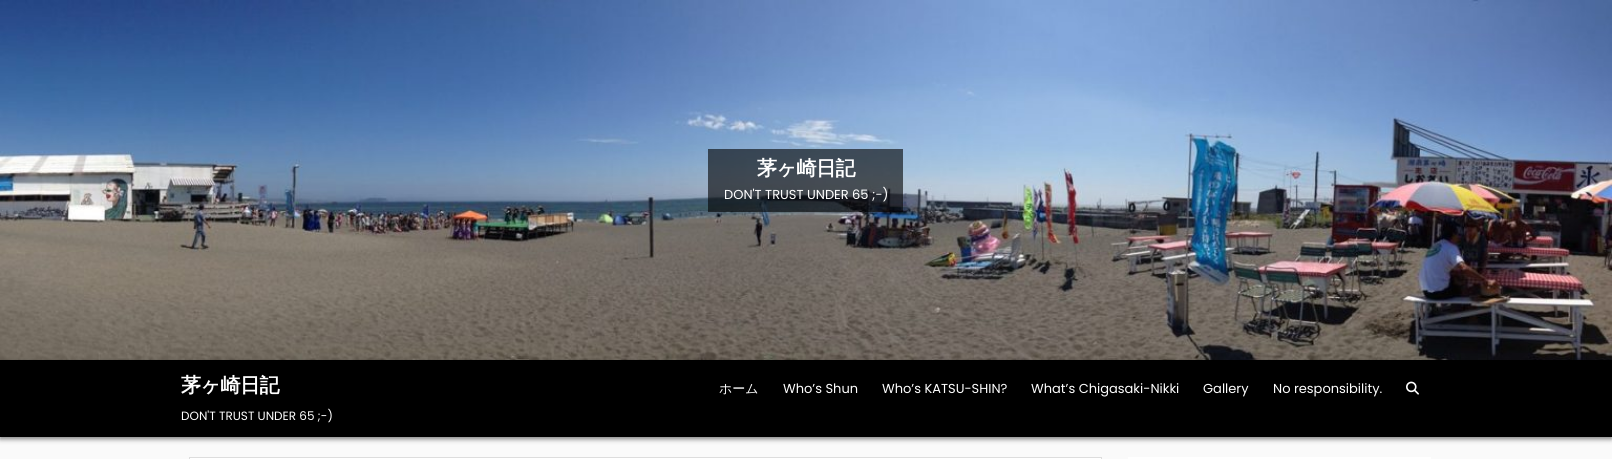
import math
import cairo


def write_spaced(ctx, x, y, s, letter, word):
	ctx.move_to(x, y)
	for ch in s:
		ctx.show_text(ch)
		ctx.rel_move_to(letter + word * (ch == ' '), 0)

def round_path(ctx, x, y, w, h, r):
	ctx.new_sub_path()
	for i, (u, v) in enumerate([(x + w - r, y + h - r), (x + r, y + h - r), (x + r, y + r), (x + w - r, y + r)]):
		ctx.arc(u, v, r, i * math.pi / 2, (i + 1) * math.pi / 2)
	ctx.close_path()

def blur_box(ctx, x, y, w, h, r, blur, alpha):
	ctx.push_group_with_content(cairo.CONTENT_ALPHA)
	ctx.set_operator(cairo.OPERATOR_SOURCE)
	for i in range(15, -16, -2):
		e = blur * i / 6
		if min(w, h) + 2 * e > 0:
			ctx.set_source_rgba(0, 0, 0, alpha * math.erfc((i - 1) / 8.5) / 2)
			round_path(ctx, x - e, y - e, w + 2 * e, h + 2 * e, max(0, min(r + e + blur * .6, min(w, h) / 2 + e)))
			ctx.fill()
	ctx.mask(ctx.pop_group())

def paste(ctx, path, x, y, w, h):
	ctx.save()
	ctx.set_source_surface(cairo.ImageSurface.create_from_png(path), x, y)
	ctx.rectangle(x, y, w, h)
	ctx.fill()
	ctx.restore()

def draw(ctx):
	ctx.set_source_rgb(0.98, 0.98, 0.98)
	ctx.paint()
	paste(ctx, 'media/1.png', 0, 0, 1612, 360)
	ctx.set_source_rgba(0, 0, 0, 0.6)
	ctx.rectangle(708, 149, 195, 63)
	ctx.fill()
	ctx.select_font_face('WenQuanYi Zen Hei', cairo.FONT_SLANT_NORMAL, cairo.FONT_WEIGHT_BOLD)
	ctx.set_font_size(20)
	ctx.set_source_rgb(1, 1, 1)
	write_spaced(ctx, 757, 175, '茅ヶ崎日記', -0.5, 0)
	ctx.select_font_face('Poppins')
	ctx.set_font_size(13)
	ctx.move_to(724, 199)
	ctx.show_text('DON\'T TRUST UNDER 65 ;-)')
	ctx.set_source_rgb(0, 0, 0)
	blur_box(ctx, 0, 362, 1612, 77, 0, 2.5, 0.5)
	ctx.set_source_rgb(0, 0, 0)
	ctx.rectangle(0, 360, 1612, 77)
	ctx.fill()
	ctx.select_font_face('WenQuanYi Zen Hei', cairo.FONT_SLANT_NORMAL, cairo.FONT_WEIGHT_BOLD)
	ctx.set_font_size(20)
	ctx.set_source_rgb(1, 1, 1)
	write_spaced(ctx, 181, 392, '茅ヶ崎日記', -0.5, 0)
	ctx.select_font_face('Poppins')
	ctx.set_font_size(12)
	ctx.move_to(181, 420)
	ctx.show_text('DON\'T TRUST UNDER 65 ;-)')
	ctx.select_font_face('WenQuanYi Zen Hei Medium')
	ctx.set_font_size(13)
	ctx.move_to(719, 393)
	ctx.show_text('ホーム')
	ctx.select_font_face('Poppins')
	for x, y, s in [
		(783, 393, 'Who’s Shun'),
		(882, 393, 'Who’s KATSU-SHIN?'),
		(1031, 393, 'What’s Chigasaki-Nikki'),
		(1203, 393, 'Gallery'),
		(1273, 393, 'No responsibility.'),
	]:
		ctx.move_to(x, y)
		ctx.show_text(s)
	paste(ctx, 'media/2.png', 1406, 381, 13, 14)
	ctx.rectangle(189.5, 457.5, 912, 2)
	ctx.fill_preserve()
	ctx.set_source_rgb(0.867, 0.867, 0.867)
	ctx.set_line_width(1)
	ctx.stroke()
	ctx.set_source_rgb(1, 1, 1)
	ctx.rectangle(1128, 457, 303, 2)
	ctx.fill()


surface = cairo.ImageSurface(cairo.FORMAT_RGB24, 1612, 459)
ctx = cairo.Context(surface)
options = cairo.FontOptions()
options.set_hint_metrics(cairo.HINT_METRICS_OFF)
options.set_hint_style(cairo.HINT_STYLE_NONE)
ctx.set_font_options(options)
ctx.set_miter_limit(4)
draw(ctx)
surface.write_to_png('image.png')
